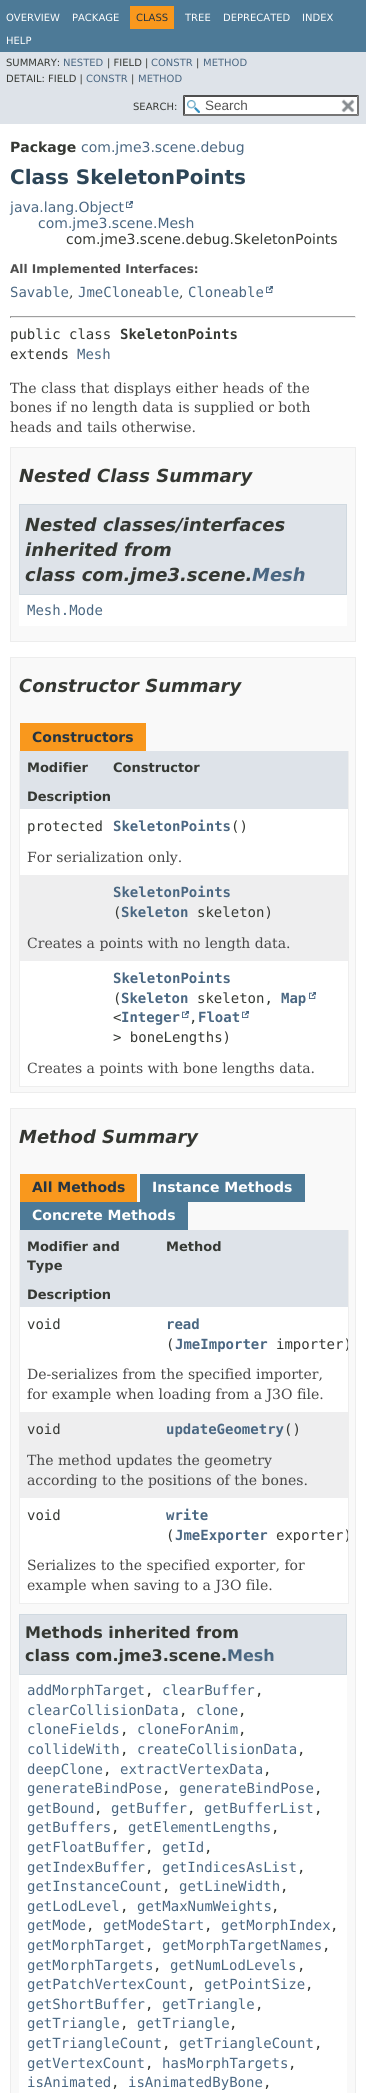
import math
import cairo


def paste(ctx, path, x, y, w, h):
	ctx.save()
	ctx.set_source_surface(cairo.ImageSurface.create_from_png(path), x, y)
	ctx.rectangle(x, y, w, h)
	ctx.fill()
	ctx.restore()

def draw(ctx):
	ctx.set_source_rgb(1, 1, 1)
	ctx.paint()
	ctx.set_source_rgb(0.302, 0.478, 0.592)
	ctx.rectangle(0, 0, 366, 52)
	ctx.fill()
	ctx.select_font_face('DejaVu Sans')
	ctx.set_font_size(10)
	ctx.set_source_rgb(1, 1, 1)
	ctx.move_to(6, 21)
	ctx.show_text('OVERVIEW')
	ctx.move_to(72, 21)
	ctx.show_text('PACKAGE')
	ctx.set_source_rgb(0.973, 0.596, 0.114)
	ctx.rectangle(130, 6, 44, 23)
	ctx.fill()
	ctx.set_source_rgb(0.145, 0.204, 0.255)
	ctx.move_to(136, 21)
	ctx.show_text('CLASS')
	ctx.set_source_rgb(1, 1, 1)
	for x, y, s in [
		(185, 21, 'TREE'),
		(223, 21, 'DEPRECATED'),
		(302, 21, 'INDEX'),
		(6, 44, 'HELP'),
	]:
		ctx.move_to(x, y)
		ctx.show_text(s)
	ctx.set_source_rgb(0.871, 0.89, 0.914)
	ctx.rectangle(0, 52, 366, 72)
	ctx.fill()
	ctx.set_source_rgb(0.208, 0.22, 0.2)
	ctx.move_to(6, 66)
	ctx.show_text('SUMMARY:')
	ctx.set_source_rgb(0.29, 0.404, 0.51)
	ctx.move_to(63, 66)
	ctx.show_text('NESTED')
	ctx.set_source_rgb(0.208, 0.22, 0.2)
	ctx.move_to(107, 66)
	ctx.show_text('| FIELD |')
	ctx.set_source_rgb(0.29, 0.404, 0.51)
	ctx.move_to(151, 66)
	ctx.show_text('CONSTR')
	ctx.set_source_rgb(0.208, 0.22, 0.2)
	ctx.move_to(196, 66)
	ctx.show_text('|')
	ctx.set_source_rgb(0.29, 0.404, 0.51)
	ctx.move_to(203, 66)
	ctx.show_text('METHOD')
	ctx.set_source_rgb(0.208, 0.22, 0.2)
	ctx.move_to(6, 82)
	ctx.show_text('DETAIL: FIELD |')
	ctx.set_source_rgb(0.29, 0.404, 0.51)
	ctx.move_to(86, 82)
	ctx.show_text('CONSTR')
	ctx.set_source_rgb(0.208, 0.22, 0.2)
	ctx.move_to(131, 82)
	ctx.show_text('|')
	ctx.set_source_rgb(0.29, 0.404, 0.51)
	ctx.move_to(138, 82)
	ctx.show_text('METHOD')
	ctx.set_source_rgb(0.208, 0.22, 0.2)
	ctx.move_to(133, 110)
	ctx.show_text('SEARCH:')
	ctx.set_source_rgb(1, 1, 1)
	ctx.rectangle(183, 95, 176, 21)
	ctx.fill()
	paste(ctx, 'media/1.png', 187, 100, 13, 13)
	ctx.set_source_rgb(0.31, 0.31, 0.31)
	ctx.new_path()
	ctx.move_to(183, 95)
	ctx.line_to(359, 95)
	ctx.line_to(357, 97)
	ctx.line_to(185, 97)
	ctx.close_path()
	ctx.fill()
	ctx.set_source_rgb(0.463, 0.463, 0.463)
	ctx.new_path()
	ctx.move_to(359, 95)
	ctx.line_to(359, 116)
	ctx.line_to(357, 114)
	ctx.line_to(357, 97)
	ctx.close_path()
	ctx.fill()
	ctx.new_path()
	ctx.move_to(359, 116)
	ctx.line_to(183, 116)
	ctx.line_to(185, 114)
	ctx.line_to(357, 114)
	ctx.close_path()
	ctx.fill()
	ctx.set_source_rgb(0.31, 0.31, 0.31)
	ctx.new_path()
	ctx.move_to(183, 116)
	ctx.line_to(183, 95)
	ctx.line_to(185, 97)
	ctx.line_to(185, 114)
	ctx.close_path()
	ctx.fill()
	ctx.select_font_face('Liberation Sans')
	ctx.set_font_size(13.5)
	ctx.set_source_rgb(0.329, 0.329, 0.329)
	ctx.move_to(205, 110)
	ctx.show_text('Search')
	paste(ctx, 'media/2.png', 341, 99, 14, 14)
	ctx.select_font_face('DejaVu Sans', cairo.FONT_SLANT_NORMAL, cairo.FONT_WEIGHT_BOLD)
	ctx.set_font_size(14)
	ctx.set_source_rgb(0.208, 0.22, 0.2)
	ctx.move_to(10, 152)
	ctx.show_text('Package')
	ctx.select_font_face('DejaVu Sans')
	ctx.set_source_rgb(0.29, 0.404, 0.51)
	ctx.move_to(81, 152)
	ctx.show_text('com.jme3.scene.debug')
	ctx.select_font_face('DejaVu Sans', cairo.FONT_SLANT_NORMAL, cairo.FONT_WEIGHT_BOLD)
	ctx.set_font_size(20)
	ctx.set_source_rgb(0.173, 0.271, 0.341)
	ctx.move_to(10, 184)
	ctx.show_text('Class SkeletonPoints')
	ctx.select_font_face('DejaVu Sans')
	ctx.set_font_size(14)
	ctx.set_source_rgb(0.29, 0.404, 0.51)
	ctx.move_to(10, 212)
	ctx.show_text('java.lang.Object')
	paste(ctx, 'media/3.png', 126, 201, 7, 7)
	ctx.move_to(38, 228)
	ctx.show_text('com.jme3.scene.Mesh')
	ctx.set_source_rgb(0.208, 0.22, 0.2)
	ctx.move_to(66, 244)
	ctx.show_text('com.jme3.scene.debug.SkeletonPoints')
	ctx.select_font_face('DejaVu Sans', cairo.FONT_SLANT_NORMAL, cairo.FONT_WEIGHT_BOLD)
	ctx.set_font_size(12)
	ctx.set_source_rgb(0.306, 0.306, 0.306)
	ctx.move_to(10, 273)
	ctx.show_text('All Implemented Interfaces:')
	ctx.select_font_face('DejaVu Sans Mono')
	ctx.set_font_size(14)
	ctx.set_source_rgb(0.29, 0.404, 0.51)
	ctx.move_to(10, 297)
	ctx.show_text('Savable')
	ctx.select_font_face('DejaVu Serif')
	ctx.set_source_rgb(0.208, 0.22, 0.2)
	ctx.move_to(69, 297)
	ctx.show_text(',')
	ctx.select_font_face('DejaVu Sans Mono')
	ctx.set_source_rgb(0.29, 0.404, 0.51)
	ctx.move_to(78, 297)
	ctx.show_text('JmeCloneable')
	ctx.select_font_face('DejaVu Serif')
	ctx.set_source_rgb(0.208, 0.22, 0.2)
	ctx.move_to(179, 297)
	ctx.show_text(',')
	ctx.select_font_face('DejaVu Sans Mono')
	ctx.set_source_rgb(0.29, 0.404, 0.51)
	ctx.move_to(188, 297)
	ctx.show_text('Cloneable')
	paste(ctx, 'media/3.png', 266, 286, 7, 7)
	ctx.set_source_rgb(0.624, 0.624, 0.624)
	ctx.rectangle(10, 316, 346, 1)
	ctx.fill()
	ctx.set_source_rgb(0.933, 0.933, 0.933)
	ctx.rectangle(355, 316, 1, 2)
	ctx.rectangle(10, 317, 346, 1)
	ctx.fill()
	ctx.set_source_rgb(0.624, 0.624, 0.624)
	ctx.rectangle(10, 316, 1, 2)
	ctx.fill()
	ctx.set_source_rgb(0.208, 0.22, 0.2)
	ctx.move_to(10, 339)
	ctx.show_text('public class')
	ctx.select_font_face('DejaVu Sans Mono', cairo.FONT_SLANT_NORMAL, cairo.FONT_WEIGHT_BOLD)
	ctx.move_to(120, 339)
	ctx.show_text('SkeletonPoints')
	ctx.select_font_face('DejaVu Sans Mono')
	ctx.move_to(10, 359)
	ctx.show_text('extends')
	ctx.set_source_rgb(0.29, 0.404, 0.51)
	ctx.move_to(77, 359)
	ctx.show_text('Mesh')
	ctx.select_font_face('DejaVu Serif')
	ctx.set_source_rgb(0.278, 0.278, 0.278)
	for x, y, s in [
		(10, 393, 'The class that displays either heads of the'),
		(10, 412, 'bones if no length data is supplied or both'),
		(10, 432, 'heads and tails otherwise.'),
	]:
		ctx.move_to(x, y)
		ctx.show_text(s)
	ctx.set_source_rgb(0.973, 0.973, 0.973)
	ctx.rectangle(10.5, 447.5, 345, 194)
	ctx.fill_preserve()
	ctx.set_source_rgb(0.929, 0.929, 0.929)
	ctx.set_line_width(1)
	ctx.stroke()
	ctx.select_font_face('DejaVu Sans', cairo.FONT_SLANT_ITALIC, cairo.FONT_WEIGHT_BOLD)
	ctx.set_font_size(18)
	ctx.set_source_rgb(0.208, 0.22, 0.2)
	ctx.move_to(19, 482)
	ctx.show_text('Nested Class Summary')
	ctx.set_source_rgb(1, 1, 1)
	ctx.rectangle(19, 595, 328, 31)
	ctx.fill()
	ctx.set_source_rgb(0.871, 0.89, 0.914)
	ctx.rectangle(19.5, 504.5, 327, 90)
	ctx.fill_preserve()
	ctx.set_source_rgb(0.816, 0.851, 0.878)
	ctx.stroke()
	ctx.set_source_rgb(0.208, 0.22, 0.2)
	for x, y, s in [
		(25, 531, 'Nested classes/interfaces'),
		(25, 556, 'inherited from'),
		(25, 581, 'class com.jme3.scene.'),
	]:
		ctx.move_to(x, y)
		ctx.show_text(s)
	ctx.set_source_rgb(0.29, 0.404, 0.51)
	ctx.move_to(252, 581)
	ctx.show_text('Mesh')
	ctx.select_font_face('DejaVu Sans Mono')
	ctx.set_font_size(14)
	ctx.move_to(27, 615)
	ctx.show_text('Mesh.Mode')
	ctx.set_source_rgb(0.973, 0.973, 0.973)
	ctx.rectangle(10.5, 657.5, 345, 435)
	ctx.fill_preserve()
	ctx.set_source_rgb(0.929, 0.929, 0.929)
	ctx.stroke()
	ctx.select_font_face('DejaVu Sans', cairo.FONT_SLANT_ITALIC, cairo.FONT_WEIGHT_BOLD)
	ctx.set_font_size(18)
	ctx.set_source_rgb(0.208, 0.22, 0.2)
	ctx.move_to(19, 692)
	ctx.show_text('Constructor Summary')
	ctx.set_source_rgb(0.973, 0.596, 0.114)
	ctx.rectangle(20, 723, 126, 28)
	ctx.fill()
	ctx.select_font_face('DejaVu Sans', cairo.FONT_SLANT_NORMAL, cairo.FONT_WEIGHT_BOLD)
	ctx.set_font_size(14)
	ctx.set_source_rgb(0.145, 0.204, 0.255)
	ctx.move_to(32, 742)
	ctx.show_text('Constructors')
	ctx.set_source_rgb(0.933, 0.933, 0.933)
	ctx.rectangle(348, 751, 1, 336)
	ctx.rectangle(19, 1086, 330, 1)
	ctx.rectangle(19, 751, 1, 336)
	ctx.fill()
	ctx.set_source_rgb(0.871, 0.89, 0.914)
	ctx.rectangle(20, 751, 328, 29)
	ctx.fill()
	ctx.set_font_size(13)
	ctx.set_source_rgb(0.208, 0.22, 0.2)
	ctx.move_to(27, 772)
	ctx.show_text('Modifier')
	ctx.move_to(113, 772)
	ctx.show_text('Constructor')
	ctx.set_source_rgb(0.871, 0.89, 0.914)
	ctx.rectangle(20, 780, 328, 29)
	ctx.fill()
	ctx.set_source_rgb(0.208, 0.22, 0.2)
	ctx.move_to(27, 801)
	ctx.show_text('Description')
	ctx.set_source_rgb(1, 1, 1)
	ctx.rectangle(20, 809, 328, 31)
	ctx.fill()
	ctx.select_font_face('DejaVu Sans Mono')
	ctx.set_font_size(14)
	ctx.set_source_rgb(0.208, 0.22, 0.2)
	ctx.move_to(27, 831)
	ctx.show_text('protected')
	ctx.select_font_face('DejaVu Sans Mono', cairo.FONT_SLANT_NORMAL, cairo.FONT_WEIGHT_BOLD)
	ctx.set_source_rgb(0.29, 0.404, 0.51)
	ctx.move_to(113, 831)
	ctx.show_text('SkeletonPoints')
	ctx.select_font_face('DejaVu Sans Mono')
	ctx.set_source_rgb(0.208, 0.22, 0.2)
	ctx.move_to(231, 831)
	ctx.show_text('()')
	ctx.set_source_rgb(1, 1, 1)
	ctx.rectangle(20, 840, 328, 35)
	ctx.fill()
	ctx.select_font_face('DejaVu Serif')
	ctx.set_source_rgb(0.278, 0.278, 0.278)
	ctx.move_to(27, 862)
	ctx.show_text('For serialization only.')
	ctx.set_source_rgb(0.933, 0.933, 0.937)
	ctx.rectangle(20, 875, 328, 51)
	ctx.fill()
	ctx.select_font_face('DejaVu Sans Mono', cairo.FONT_SLANT_NORMAL, cairo.FONT_WEIGHT_BOLD)
	ctx.set_source_rgb(0.29, 0.404, 0.51)
	ctx.move_to(113, 897)
	ctx.show_text('SkeletonPoints')
	ctx.select_font_face('DejaVu Sans Mono')
	ctx.set_source_rgb(0.208, 0.22, 0.2)
	ctx.move_to(113, 917)
	ctx.show_text('(')
	ctx.select_font_face('DejaVu Sans Mono', cairo.FONT_SLANT_NORMAL, cairo.FONT_WEIGHT_BOLD)
	ctx.set_source_rgb(0.29, 0.404, 0.51)
	ctx.move_to(121, 917)
	ctx.show_text('Skeleton')
	ctx.select_font_face('DejaVu Sans Mono')
	ctx.set_source_rgb(0.208, 0.22, 0.2)
	ctx.move_to(197, 917)
	ctx.show_text('skeleton)')
	ctx.set_source_rgb(0.933, 0.933, 0.937)
	ctx.rectangle(20, 926, 328, 35)
	ctx.fill()
	ctx.select_font_face('DejaVu Serif')
	ctx.set_source_rgb(0.278, 0.278, 0.278)
	ctx.move_to(27, 948)
	ctx.show_text('Creates a points with no length data.')
	ctx.set_source_rgb(1, 1, 1)
	ctx.rectangle(20, 961, 328, 90)
	ctx.fill()
	ctx.select_font_face('DejaVu Sans Mono', cairo.FONT_SLANT_NORMAL, cairo.FONT_WEIGHT_BOLD)
	ctx.set_source_rgb(0.29, 0.404, 0.51)
	ctx.move_to(113, 983)
	ctx.show_text('SkeletonPoints')
	ctx.select_font_face('DejaVu Sans Mono')
	ctx.set_source_rgb(0.208, 0.22, 0.2)
	ctx.move_to(113, 1003)
	ctx.show_text('(')
	ctx.select_font_face('DejaVu Sans Mono', cairo.FONT_SLANT_NORMAL, cairo.FONT_WEIGHT_BOLD)
	ctx.set_source_rgb(0.29, 0.404, 0.51)
	ctx.move_to(121, 1003)
	ctx.show_text('Skeleton')
	ctx.select_font_face('DejaVu Sans Mono')
	ctx.set_source_rgb(0.208, 0.22, 0.2)
	ctx.move_to(197, 1003)
	ctx.show_text('skeleton,')
	ctx.select_font_face('DejaVu Sans Mono', cairo.FONT_SLANT_NORMAL, cairo.FONT_WEIGHT_BOLD)
	ctx.set_source_rgb(0.29, 0.404, 0.51)
	ctx.move_to(281, 1003)
	ctx.show_text('Map')
	paste(ctx, 'media/3.png', 309, 992, 7, 7)
	ctx.select_font_face('DejaVu Sans Mono')
	ctx.set_source_rgb(0.208, 0.22, 0.2)
	ctx.move_to(113, 1022)
	ctx.show_text('<')
	ctx.select_font_face('DejaVu Sans Mono', cairo.FONT_SLANT_NORMAL, cairo.FONT_WEIGHT_BOLD)
	ctx.set_source_rgb(0.29, 0.404, 0.51)
	ctx.move_to(121, 1022)
	ctx.show_text('Integer')
	paste(ctx, 'media/3.png', 182, 1011, 7, 7)
	ctx.move_to(198, 1022)
	ctx.show_text('Float')
	paste(ctx, 'media/3.png', 242, 1011, 7, 7)
	ctx.select_font_face('DejaVu Sans Mono')
	ctx.set_source_rgb(0.208, 0.22, 0.2)
	ctx.move_to(189, 1022)
	ctx.show_text(',')
	ctx.move_to(113, 1042)
	ctx.show_text('> boneLengths)')
	ctx.set_source_rgb(1, 1, 1)
	ctx.rectangle(20, 1051, 328, 35)
	ctx.fill()
	ctx.select_font_face('DejaVu Serif')
	ctx.set_source_rgb(0.278, 0.278, 0.278)
	ctx.move_to(27, 1073)
	ctx.show_text('Creates a points with bone lengths data.')
	ctx.set_source_rgb(0.973, 0.973, 0.973)
	ctx.rectangle(10.5, 1108.5, 345, 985)
	ctx.fill_preserve()
	ctx.set_source_rgb(0.929, 0.929, 0.929)
	ctx.stroke()
	ctx.select_font_face('DejaVu Sans', cairo.FONT_SLANT_ITALIC, cairo.FONT_WEIGHT_BOLD)
	ctx.set_font_size(18)
	ctx.set_source_rgb(0.208, 0.22, 0.2)
	ctx.move_to(19, 1143)
	ctx.show_text('Method Summary')
	ctx.set_source_rgb(0.973, 0.596, 0.114)
	ctx.rectangle(20, 1174, 117, 28)
	ctx.fill()
	ctx.select_font_face('DejaVu Sans', cairo.FONT_SLANT_NORMAL, cairo.FONT_WEIGHT_BOLD)
	ctx.set_font_size(14)
	ctx.set_source_rgb(0.145, 0.204, 0.255)
	ctx.move_to(32, 1192)
	ctx.show_text('All Methods')
	ctx.set_source_rgb(0.302, 0.478, 0.592)
	ctx.rectangle(140, 1174, 165, 28)
	ctx.fill()
	ctx.set_source_rgb(1, 1, 1)
	ctx.move_to(152, 1192)
	ctx.show_text('Instance Methods')
	ctx.set_source_rgb(0.302, 0.478, 0.592)
	ctx.rectangle(20, 1202, 168, 28)
	ctx.fill()
	ctx.set_source_rgb(1, 1, 1)
	ctx.move_to(32, 1220)
	ctx.show_text('Concrete Methods')
	ctx.set_source_rgb(0.933, 0.933, 0.933)
	ctx.rectangle(348, 1230, 1, 374)
	ctx.rectangle(19, 1603, 330, 1)
	ctx.rectangle(19, 1230, 1, 374)
	ctx.fill()
	ctx.set_source_rgb(0.871, 0.89, 0.914)
	ctx.rectangle(20, 1230, 328, 48)
	ctx.fill()
	ctx.set_font_size(13)
	ctx.set_source_rgb(0.208, 0.22, 0.2)
	for x, y, s in [
		(27, 1251, 'Modifier and'),
		(27, 1270, 'Type'),
		(166, 1251, 'Method'),
	]:
		ctx.move_to(x, y)
		ctx.show_text(s)
	ctx.set_source_rgb(0.871, 0.89, 0.914)
	ctx.rectangle(20, 1278, 328, 29)
	ctx.fill()
	ctx.set_source_rgb(0.208, 0.22, 0.2)
	ctx.move_to(27, 1299)
	ctx.show_text('Description')
	ctx.set_source_rgb(1, 1, 1)
	ctx.rectangle(20, 1307, 328, 50)
	ctx.fill()
	ctx.select_font_face('DejaVu Sans Mono')
	ctx.set_font_size(14)
	ctx.set_source_rgb(0.208, 0.22, 0.2)
	ctx.move_to(27, 1329)
	ctx.show_text('void')
	ctx.select_font_face('DejaVu Sans Mono', cairo.FONT_SLANT_NORMAL, cairo.FONT_WEIGHT_BOLD)
	ctx.set_source_rgb(0.29, 0.404, 0.51)
	ctx.move_to(166, 1329)
	ctx.show_text('read')
	ctx.select_font_face('DejaVu Sans Mono')
	ctx.set_source_rgb(0.208, 0.22, 0.2)
	ctx.move_to(166, 1349)
	ctx.show_text('(')
	ctx.select_font_face('DejaVu Sans Mono', cairo.FONT_SLANT_NORMAL, cairo.FONT_WEIGHT_BOLD)
	ctx.set_source_rgb(0.29, 0.404, 0.51)
	ctx.move_to(175, 1349)
	ctx.show_text('JmeImporter')
	ctx.save()
	ctx.rectangle(159, 1307, 189, 50)
	ctx.clip()
	ctx.select_font_face('DejaVu Sans Mono')
	ctx.set_source_rgb(0.208, 0.22, 0.2)
	ctx.move_to(276, 1349)
	ctx.show_text('importer)')
	ctx.restore()
	ctx.set_source_rgb(1, 1, 1)
	ctx.rectangle(20, 1357, 328, 55)
	ctx.fill()
	ctx.select_font_face('DejaVu Serif')
	ctx.set_source_rgb(0.278, 0.278, 0.278)
	ctx.move_to(27, 1379)
	ctx.show_text('De-serializes from the specified importer,')
	ctx.move_to(27, 1399)
	ctx.show_text('for example when loading from a J3O file.')
	ctx.set_source_rgb(0.933, 0.933, 0.937)
	ctx.rectangle(20, 1412, 328, 31)
	ctx.fill()
	ctx.select_font_face('DejaVu Sans Mono')
	ctx.set_source_rgb(0.208, 0.22, 0.2)
	ctx.move_to(27, 1434)
	ctx.show_text('void')
	ctx.select_font_face('DejaVu Sans Mono', cairo.FONT_SLANT_NORMAL, cairo.FONT_WEIGHT_BOLD)
	ctx.set_source_rgb(0.29, 0.404, 0.51)
	ctx.move_to(166, 1434)
	ctx.show_text('updateGeometry')
	ctx.select_font_face('DejaVu Sans Mono')
	ctx.set_source_rgb(0.208, 0.22, 0.2)
	ctx.move_to(284, 1434)
	ctx.show_text('()')
	ctx.set_source_rgb(0.933, 0.933, 0.937)
	ctx.rectangle(20, 1443, 328, 55)
	ctx.fill()
	ctx.select_font_face('DejaVu Serif')
	ctx.set_source_rgb(0.278, 0.278, 0.278)
	ctx.move_to(27, 1465)
	ctx.show_text('The method updates the geometry')
	ctx.move_to(27, 1485)
	ctx.show_text('according to the positions of the bones.')
	ctx.set_source_rgb(1, 1, 1)
	ctx.rectangle(20, 1498, 328, 50)
	ctx.fill()
	ctx.select_font_face('DejaVu Sans Mono')
	ctx.set_source_rgb(0.208, 0.22, 0.2)
	ctx.move_to(27, 1520)
	ctx.show_text('void')
	ctx.select_font_face('DejaVu Sans Mono', cairo.FONT_SLANT_NORMAL, cairo.FONT_WEIGHT_BOLD)
	ctx.set_source_rgb(0.29, 0.404, 0.51)
	ctx.move_to(166, 1520)
	ctx.show_text('write')
	ctx.select_font_face('DejaVu Sans Mono')
	ctx.set_source_rgb(0.208, 0.22, 0.2)
	ctx.move_to(166, 1540)
	ctx.show_text('(')
	ctx.select_font_face('DejaVu Sans Mono', cairo.FONT_SLANT_NORMAL, cairo.FONT_WEIGHT_BOLD)
	ctx.set_source_rgb(0.29, 0.404, 0.51)
	ctx.move_to(175, 1540)
	ctx.show_text('JmeExporter')
	ctx.save()
	ctx.rectangle(159, 1498, 189, 50)
	ctx.clip()
	ctx.select_font_face('DejaVu Sans Mono')
	ctx.set_source_rgb(0.208, 0.22, 0.2)
	ctx.move_to(276, 1540)
	ctx.show_text('exporter)')
	ctx.restore()
	ctx.set_source_rgb(1, 1, 1)
	ctx.rectangle(20, 1548, 328, 55)
	ctx.fill()
	ctx.select_font_face('DejaVu Serif')
	ctx.set_source_rgb(0.278, 0.278, 0.278)
	ctx.move_to(27, 1570)
	ctx.show_text('Serializes to the specified exporter, for')
	ctx.move_to(27, 1590)
	ctx.show_text('example when saving to a J3O file.')
	ctx.set_source_rgb(1, 1, 1)
	ctx.rectangle(19, 1675, 328, 418)
	ctx.fill()
	ctx.set_source_rgb(0.871, 0.89, 0.914)
	ctx.rectangle(19.5, 1614.5, 327, 60)
	ctx.fill_preserve()
	ctx.set_source_rgb(0.816, 0.851, 0.878)
	ctx.stroke()
	ctx.select_font_face('DejaVu Sans', cairo.FONT_SLANT_NORMAL, cairo.FONT_WEIGHT_BOLD)
	ctx.set_font_size(16)
	ctx.set_source_rgb(0.208, 0.22, 0.2)
	ctx.move_to(25, 1638)
	ctx.show_text('Methods inherited from')
	ctx.move_to(25, 1661)
	ctx.show_text('class com.jme3.scene.')
	ctx.set_source_rgb(0.29, 0.404, 0.51)
	ctx.move_to(227, 1661)
	ctx.show_text('Mesh')
	ctx.select_font_face('DejaVu Sans Mono')
	ctx.set_font_size(14)
	ctx.move_to(27, 1695)
	ctx.show_text('addMorphTarget')
	ctx.set_source_rgb(0.208, 0.22, 0.2)
	ctx.move_to(145, 1695)
	ctx.show_text(',')
	ctx.set_source_rgb(0.29, 0.404, 0.51)
	ctx.move_to(162, 1695)
	ctx.show_text('clearBuffer')
	ctx.set_source_rgb(0.208, 0.22, 0.2)
	ctx.move_to(255, 1695)
	ctx.show_text(',')
	ctx.set_source_rgb(0.29, 0.404, 0.51)
	ctx.move_to(27, 1715)
	ctx.show_text('clearCollisionData')
	ctx.set_source_rgb(0.208, 0.22, 0.2)
	ctx.move_to(179, 1715)
	ctx.show_text(',')
	ctx.set_source_rgb(0.29, 0.404, 0.51)
	ctx.move_to(196, 1715)
	ctx.show_text('clone')
	ctx.set_source_rgb(0.208, 0.22, 0.2)
	ctx.move_to(238, 1715)
	ctx.show_text(',')
	ctx.set_source_rgb(0.29, 0.404, 0.51)
	ctx.move_to(27, 1734)
	ctx.show_text('cloneFields')
	ctx.set_source_rgb(0.208, 0.22, 0.2)
	ctx.move_to(120, 1734)
	ctx.show_text(',')
	ctx.set_source_rgb(0.29, 0.404, 0.51)
	ctx.move_to(137, 1734)
	ctx.show_text('cloneForAnim')
	ctx.set_source_rgb(0.208, 0.22, 0.2)
	ctx.move_to(238, 1734)
	ctx.show_text(',')
	ctx.set_source_rgb(0.29, 0.404, 0.51)
	ctx.move_to(27, 1754)
	ctx.show_text('collideWith')
	ctx.set_source_rgb(0.208, 0.22, 0.2)
	ctx.move_to(120, 1754)
	ctx.show_text(',')
	ctx.set_source_rgb(0.29, 0.404, 0.51)
	ctx.move_to(137, 1754)
	ctx.show_text('createCollisionData')
	ctx.set_source_rgb(0.208, 0.22, 0.2)
	ctx.move_to(297, 1754)
	ctx.show_text(',')
	ctx.set_source_rgb(0.29, 0.404, 0.51)
	ctx.move_to(27, 1774)
	ctx.show_text('deepClone')
	ctx.set_source_rgb(0.208, 0.22, 0.2)
	ctx.move_to(103, 1774)
	ctx.show_text(',')
	ctx.set_source_rgb(0.29, 0.404, 0.51)
	ctx.move_to(120, 1774)
	ctx.show_text('extractVertexData')
	ctx.set_source_rgb(0.208, 0.22, 0.2)
	ctx.move_to(263, 1774)
	ctx.show_text(',')
	ctx.set_source_rgb(0.29, 0.404, 0.51)
	ctx.move_to(27, 1793)
	ctx.show_text('generateBindPose')
	ctx.set_source_rgb(0.208, 0.22, 0.2)
	ctx.move_to(162, 1793)
	ctx.show_text(',')
	ctx.set_source_rgb(0.29, 0.404, 0.51)
	ctx.move_to(179, 1793)
	ctx.show_text('generateBindPose')
	ctx.set_source_rgb(0.208, 0.22, 0.2)
	ctx.move_to(314, 1793)
	ctx.show_text(',')
	ctx.set_source_rgb(0.29, 0.404, 0.51)
	ctx.move_to(27, 1813)
	ctx.show_text('getBound')
	ctx.set_source_rgb(0.208, 0.22, 0.2)
	ctx.move_to(94, 1813)
	ctx.show_text(',')
	ctx.set_source_rgb(0.29, 0.404, 0.51)
	ctx.move_to(111, 1813)
	ctx.show_text('getBuffer')
	ctx.set_source_rgb(0.208, 0.22, 0.2)
	ctx.move_to(187, 1813)
	ctx.show_text(',')
	ctx.set_source_rgb(0.29, 0.404, 0.51)
	ctx.move_to(204, 1813)
	ctx.show_text('getBufferList')
	ctx.set_source_rgb(0.208, 0.22, 0.2)
	ctx.move_to(314, 1813)
	ctx.show_text(',')
	ctx.set_source_rgb(0.29, 0.404, 0.51)
	ctx.move_to(27, 1832)
	ctx.show_text('getBuffers')
	ctx.set_source_rgb(0.208, 0.22, 0.2)
	ctx.move_to(111, 1832)
	ctx.show_text(',')
	ctx.set_source_rgb(0.29, 0.404, 0.51)
	ctx.move_to(128, 1832)
	ctx.show_text('getElementLengths')
	ctx.set_source_rgb(0.208, 0.22, 0.2)
	ctx.move_to(271, 1832)
	ctx.show_text(',')
	ctx.set_source_rgb(0.29, 0.404, 0.51)
	ctx.move_to(27, 1852)
	ctx.show_text('getFloatBuffer')
	ctx.set_source_rgb(0.208, 0.22, 0.2)
	ctx.move_to(145, 1852)
	ctx.show_text(',')
	ctx.set_source_rgb(0.29, 0.404, 0.51)
	ctx.move_to(162, 1852)
	ctx.show_text('getId')
	ctx.set_source_rgb(0.208, 0.22, 0.2)
	ctx.move_to(204, 1852)
	ctx.show_text(',')
	ctx.set_source_rgb(0.29, 0.404, 0.51)
	ctx.move_to(27, 1872)
	ctx.show_text('getIndexBuffer')
	ctx.set_source_rgb(0.208, 0.22, 0.2)
	ctx.move_to(145, 1872)
	ctx.show_text(',')
	ctx.set_source_rgb(0.29, 0.404, 0.51)
	ctx.move_to(162, 1872)
	ctx.show_text('getIndicesAsList')
	ctx.set_source_rgb(0.208, 0.22, 0.2)
	ctx.move_to(297, 1872)
	ctx.show_text(',')
	ctx.set_source_rgb(0.29, 0.404, 0.51)
	ctx.move_to(27, 1891)
	ctx.show_text('getInstanceCount')
	ctx.set_source_rgb(0.208, 0.22, 0.2)
	ctx.move_to(162, 1891)
	ctx.show_text(',')
	ctx.set_source_rgb(0.29, 0.404, 0.51)
	ctx.move_to(179, 1891)
	ctx.show_text('getLineWidth')
	ctx.set_source_rgb(0.208, 0.22, 0.2)
	ctx.move_to(280, 1891)
	ctx.show_text(',')
	ctx.set_source_rgb(0.29, 0.404, 0.51)
	ctx.move_to(27, 1911)
	ctx.show_text('getLodLevel')
	ctx.set_source_rgb(0.208, 0.22, 0.2)
	ctx.move_to(120, 1911)
	ctx.show_text(',')
	ctx.set_source_rgb(0.29, 0.404, 0.51)
	ctx.move_to(137, 1911)
	ctx.show_text('getMaxNumWeights')
	ctx.set_source_rgb(0.208, 0.22, 0.2)
	ctx.move_to(271, 1911)
	ctx.show_text(',')
	ctx.set_source_rgb(0.29, 0.404, 0.51)
	ctx.move_to(27, 1930)
	ctx.show_text('getMode')
	ctx.set_source_rgb(0.208, 0.22, 0.2)
	ctx.move_to(86, 1930)
	ctx.show_text(',')
	ctx.set_source_rgb(0.29, 0.404, 0.51)
	ctx.move_to(103, 1930)
	ctx.show_text('getModeStart')
	ctx.set_source_rgb(0.208, 0.22, 0.2)
	ctx.move_to(204, 1930)
	ctx.show_text(',')
	ctx.set_source_rgb(0.29, 0.404, 0.51)
	ctx.move_to(221, 1930)
	ctx.show_text('getMorphIndex')
	ctx.set_source_rgb(0.208, 0.22, 0.2)
	ctx.move_to(330, 1930)
	ctx.show_text(',')
	ctx.set_source_rgb(0.29, 0.404, 0.51)
	ctx.move_to(27, 1950)
	ctx.show_text('getMorphTarget')
	ctx.set_source_rgb(0.208, 0.22, 0.2)
	ctx.move_to(145, 1950)
	ctx.show_text(',')
	ctx.set_source_rgb(0.29, 0.404, 0.51)
	ctx.move_to(162, 1950)
	ctx.show_text('getMorphTargetNames')
	ctx.set_source_rgb(0.208, 0.22, 0.2)
	ctx.move_to(322, 1950)
	ctx.show_text(',')
	ctx.set_source_rgb(0.29, 0.404, 0.51)
	ctx.move_to(27, 1970)
	ctx.show_text('getMorphTargets')
	ctx.set_source_rgb(0.208, 0.22, 0.2)
	ctx.move_to(153, 1970)
	ctx.show_text(',')
	ctx.set_source_rgb(0.29, 0.404, 0.51)
	ctx.move_to(170, 1970)
	ctx.show_text('getNumLodLevels')
	ctx.set_source_rgb(0.208, 0.22, 0.2)
	ctx.move_to(297, 1970)
	ctx.show_text(',')
	ctx.set_source_rgb(0.29, 0.404, 0.51)
	ctx.move_to(27, 1989)
	ctx.show_text('getPatchVertexCount')
	ctx.set_source_rgb(0.208, 0.22, 0.2)
	ctx.move_to(187, 1989)
	ctx.show_text(',')
	ctx.set_source_rgb(0.29, 0.404, 0.51)
	ctx.move_to(204, 1989)
	ctx.show_text('getPointSize')
	ctx.set_source_rgb(0.208, 0.22, 0.2)
	ctx.move_to(305, 1989)
	ctx.show_text(',')
	ctx.set_source_rgb(0.29, 0.404, 0.51)
	ctx.move_to(27, 2009)
	ctx.show_text('getShortBuffer')
	ctx.set_source_rgb(0.208, 0.22, 0.2)
	ctx.move_to(145, 2009)
	ctx.show_text(',')
	ctx.set_source_rgb(0.29, 0.404, 0.51)
	ctx.move_to(162, 2009)
	ctx.show_text('getTriangle')
	ctx.set_source_rgb(0.208, 0.22, 0.2)
	ctx.move_to(255, 2009)
	ctx.show_text(',')
	ctx.set_source_rgb(0.29, 0.404, 0.51)
	ctx.move_to(27, 2028)
	ctx.show_text('getTriangle')
	ctx.set_source_rgb(0.208, 0.22, 0.2)
	ctx.move_to(120, 2028)
	ctx.show_text(',')
	ctx.set_source_rgb(0.29, 0.404, 0.51)
	ctx.move_to(137, 2028)
	ctx.show_text('getTriangle')
	ctx.set_source_rgb(0.208, 0.22, 0.2)
	ctx.move_to(229, 2028)
	ctx.show_text(',')
	ctx.set_source_rgb(0.29, 0.404, 0.51)
	ctx.move_to(27, 2048)
	ctx.show_text('getTriangleCount')
	ctx.set_source_rgb(0.208, 0.22, 0.2)
	ctx.move_to(162, 2048)
	ctx.show_text(',')
	ctx.set_source_rgb(0.29, 0.404, 0.51)
	ctx.move_to(179, 2048)
	ctx.show_text('getTriangleCount')
	ctx.set_source_rgb(0.208, 0.22, 0.2)
	ctx.move_to(314, 2048)
	ctx.show_text(',')
	ctx.set_source_rgb(0.29, 0.404, 0.51)
	ctx.move_to(27, 2068)
	ctx.show_text('getVertexCount')
	ctx.set_source_rgb(0.208, 0.22, 0.2)
	ctx.move_to(145, 2068)
	ctx.show_text(',')
	ctx.set_source_rgb(0.29, 0.404, 0.51)
	ctx.move_to(162, 2068)
	ctx.show_text('hasMorphTargets')
	ctx.set_source_rgb(0.208, 0.22, 0.2)
	ctx.move_to(288, 2068)
	ctx.show_text(',')
	ctx.set_source_rgb(0.29, 0.404, 0.51)
	ctx.move_to(27, 2087)
	ctx.show_text('isAnimated')
	ctx.set_source_rgb(0.208, 0.22, 0.2)
	ctx.move_to(111, 2087)
	ctx.show_text(',')
	ctx.set_source_rgb(0.29, 0.404, 0.51)
	ctx.move_to(128, 2087)
	ctx.show_text('isAnimatedByBone')
	ctx.set_source_rgb(0.208, 0.22, 0.2)
	ctx.move_to(263, 2087)
	ctx.show_text(',')


surface = cairo.ImageSurface(cairo.FORMAT_RGB24, 366, 2093)
ctx = cairo.Context(surface)
options = cairo.FontOptions()
options.set_hint_metrics(cairo.HINT_METRICS_OFF)
options.set_hint_style(cairo.HINT_STYLE_NONE)
ctx.set_font_options(options)
ctx.set_miter_limit(4)
draw(ctx)
surface.write_to_png('image.png')
